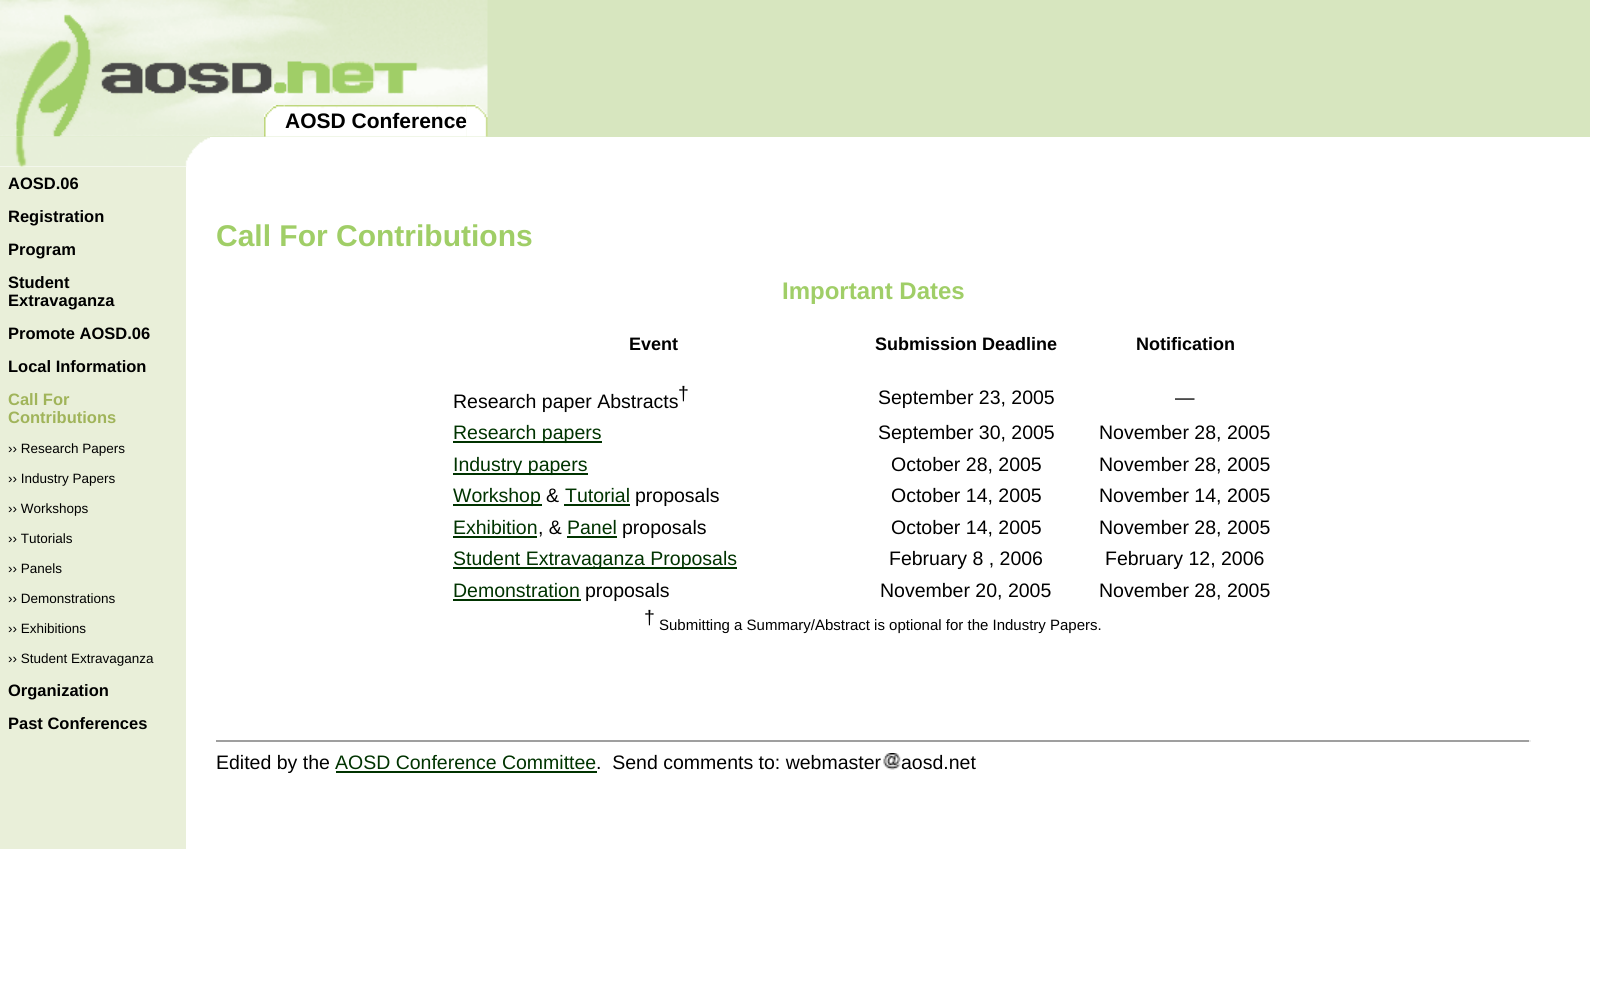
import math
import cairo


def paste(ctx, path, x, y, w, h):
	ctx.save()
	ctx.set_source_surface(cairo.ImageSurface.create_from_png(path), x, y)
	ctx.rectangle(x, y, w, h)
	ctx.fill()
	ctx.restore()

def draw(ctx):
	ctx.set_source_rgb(1, 1, 1)
	ctx.paint()
	ctx.set_source_rgb(0.843, 0.902, 0.749)
	ctx.rectangle(0, 0, 1590, 137)
	ctx.fill()
	paste(ctx, 'media/1.png', 0, 0, 488, 137)
	paste(ctx, 'media/2.png', 264, 105, 21, 32)
	paste(ctx, 'media/3.png', 285, 105, 182, 32)
	ctx.select_font_face('Liberation Sans', cairo.FONT_SLANT_NORMAL, cairo.FONT_WEIGHT_BOLD)
	ctx.set_font_size(21)
	ctx.set_source_rgb(0, 0, 0)
	ctx.move_to(285, 128)
	ctx.show_text('AOSD Conference')
	paste(ctx, 'media/4.png', 466, 105, 22, 32)
	paste(ctx, 'media/5.png', 0, 136, 210, 31)
	ctx.set_source_rgb(0.914, 0.937, 0.851)
	ctx.rectangle(0, 167, 186, 682)
	ctx.fill()
	ctx.set_font_size(16.5)
	ctx.set_source_rgb(0, 0, 0)
	for x, y, s in [
		(8, 189, 'AOSD.06'),
		(8, 222, 'Registration'),
		(8, 255, 'Program'),
		(8, 288, 'Student'),
		(8, 306, 'Extravaganza'),
		(8, 339, 'Promote AOSD.06'),
		(8, 372, 'Local Information'),
	]:
		ctx.move_to(x, y)
		ctx.show_text(s)
	ctx.set_source_rgb(0.627, 0.706, 0.353)
	ctx.move_to(8, 405)
	ctx.show_text('Call For')
	ctx.move_to(8, 423)
	ctx.show_text('Contributions')
	ctx.select_font_face('Liberation Sans')
	ctx.set_font_size(13.5)
	ctx.set_source_rgb(0, 0, 0)
	for x, y, s in [
		(8, 453, '›› Research Papers'),
		(8, 483, '›› Industry Papers'),
		(8, 513, '›› Workshops'),
		(8, 543, '›› Tutorials'),
		(8, 573, '›› Panels'),
		(8, 603, '›› Demonstrations'),
		(8, 633, '›› Exhibitions'),
		(8, 663, '›› Student Extravaganza'),
	]:
		ctx.move_to(x, y)
		ctx.show_text(s)
	ctx.select_font_face('Liberation Sans', cairo.FONT_SLANT_NORMAL, cairo.FONT_WEIGHT_BOLD)
	ctx.set_font_size(16.5)
	ctx.move_to(8, 696)
	ctx.show_text('Organization')
	ctx.move_to(8, 729)
	ctx.show_text('Past Conferences')
	ctx.set_font_size(30)
	ctx.set_source_rgb(0.627, 0.808, 0.404)
	ctx.move_to(216, 246)
	ctx.show_text('Call For Contributions')
	ctx.set_font_size(24)
	ctx.move_to(782, 299)
	ctx.show_text('Important Dates')
	ctx.set_font_size(18)
	ctx.set_source_rgb(0, 0, 0)
	for x, y, s in [
		(629, 350, 'Event'),
		(875, 350, 'Submission Deadline'),
		(1136, 350, 'Notification'),
	]:
		ctx.move_to(x, y)
		ctx.show_text(s)
	ctx.select_font_face('Liberation Sans')
	ctx.set_font_size(19.5)
	for x, y, s in [
		(453, 408, 'Research paper Abstracts'),
		(678, 400, '†'),
		(878, 404, 'September 23, 2005'),
		(1175, 404, '—'),
	]:
		ctx.move_to(x, y)
		ctx.show_text(s)
	ctx.set_source_rgb(0, 0.2, 0)
	ctx.rectangle(453, 441, 149, 2)
	ctx.fill()
	ctx.move_to(453, 439)
	ctx.show_text('Research papers')
	ctx.set_source_rgb(0, 0, 0)
	ctx.move_to(878, 439)
	ctx.show_text('September 30, 2005')
	ctx.move_to(1099, 439)
	ctx.show_text('November 28, 2005')
	ctx.set_source_rgb(0, 0.2, 0)
	ctx.rectangle(453, 473, 135, 2)
	ctx.fill()
	ctx.move_to(453, 471)
	ctx.show_text('Industry papers')
	ctx.set_source_rgb(0, 0, 0)
	ctx.move_to(891, 471)
	ctx.show_text('October 28, 2005')
	ctx.move_to(1099, 471)
	ctx.show_text('November 28, 2005')
	ctx.set_source_rgb(0, 0.2, 0)
	ctx.rectangle(453, 504, 89, 2)
	ctx.fill()
	ctx.move_to(453, 502)
	ctx.show_text('Workshop')
	ctx.set_source_rgb(0, 0, 0)
	ctx.move_to(546, 502)
	ctx.show_text('&')
	ctx.set_source_rgb(0, 0.2, 0)
	ctx.move_to(565, 502)
	ctx.show_text('Tutorial')
	ctx.rectangle(564, 504, 66, 2)
	ctx.fill()
	ctx.set_source_rgb(0, 0, 0)
	for x, y, s in [
		(635, 502, 'proposals'),
		(891, 502, 'October 14, 2005'),
		(1099, 502, 'November 14, 2005'),
	]:
		ctx.move_to(x, y)
		ctx.show_text(s)
	ctx.set_source_rgb(0, 0.2, 0)
	ctx.move_to(453, 534)
	ctx.show_text('Exhibition')
	ctx.rectangle(453, 536, 84, 2)
	ctx.fill()
	ctx.set_source_rgb(0, 0, 0)
	ctx.move_to(538, 534)
	ctx.show_text(', &')
	ctx.set_source_rgb(0, 0.2, 0)
	ctx.move_to(567, 534)
	ctx.show_text('Panel')
	ctx.rectangle(567, 536, 50, 2)
	ctx.fill()
	ctx.set_source_rgb(0, 0, 0)
	for x, y, s in [
		(622, 534, 'proposals'),
		(891, 534, 'October 14, 2005'),
		(1099, 534, 'November 28, 2005'),
	]:
		ctx.move_to(x, y)
		ctx.show_text(s)
	ctx.set_source_rgb(0, 0.2, 0)
	ctx.rectangle(453, 567, 284, 2)
	ctx.fill()
	ctx.move_to(453, 565)
	ctx.show_text('Student Extravaganza Proposals')
	ctx.set_source_rgb(0, 0, 0)
	ctx.move_to(889, 565)
	ctx.show_text('February 8 , 2006')
	ctx.move_to(1105, 565)
	ctx.show_text('February 12, 2006')
	ctx.set_source_rgb(0, 0.2, 0)
	ctx.move_to(453, 597)
	ctx.show_text('Demonstration')
	ctx.rectangle(453, 599, 128, 2)
	ctx.fill()
	ctx.set_source_rgb(0, 0, 0)
	for x, y, s in [
		(585, 597, 'proposals'),
		(880, 597, 'November 20, 2005'),
		(1099, 597, 'November 28, 2005'),
		(644, 624, '†'),
	]:
		ctx.move_to(x, y)
		ctx.show_text(s)
	ctx.set_font_size(15)
	ctx.move_to(659, 630)
	ctx.show_text('Submitting a Summary/Abstract is optional for the Industry Papers.')
	ctx.set_source_rgb(0.624, 0.624, 0.624)
	ctx.rectangle(216, 740, 1314, 2)
	ctx.fill()
	ctx.set_source_rgb(0.933, 0.933, 0.933)
	ctx.rectangle(1529, 740, 2, 2)
	ctx.fill()
	ctx.set_font_size(19.5)
	ctx.set_source_rgb(0, 0, 0)
	ctx.move_to(216, 769)
	ctx.show_text('Edited by the')
	ctx.set_source_rgb(0, 0.2, 0)
	ctx.move_to(335, 769)
	ctx.show_text('AOSD Conference Committee')
	ctx.rectangle(336, 771, 261, 2)
	ctx.fill()
	ctx.set_source_rgb(0, 0, 0)
	ctx.move_to(596, 769)
	ctx.show_text('.  Send comments to: webmaster')
	paste(ctx, 'media/6.png', 883, 753, 18, 17)
	ctx.move_to(901, 769)
	ctx.show_text('aosd.net')


surface = cairo.ImageSurface(cairo.FORMAT_RGB24, 1602, 985)
ctx = cairo.Context(surface)
options = cairo.FontOptions()
options.set_hint_metrics(cairo.HINT_METRICS_OFF)
options.set_hint_style(cairo.HINT_STYLE_NONE)
ctx.set_font_options(options)
ctx.set_miter_limit(4)
draw(ctx)
surface.write_to_png('image.png')
